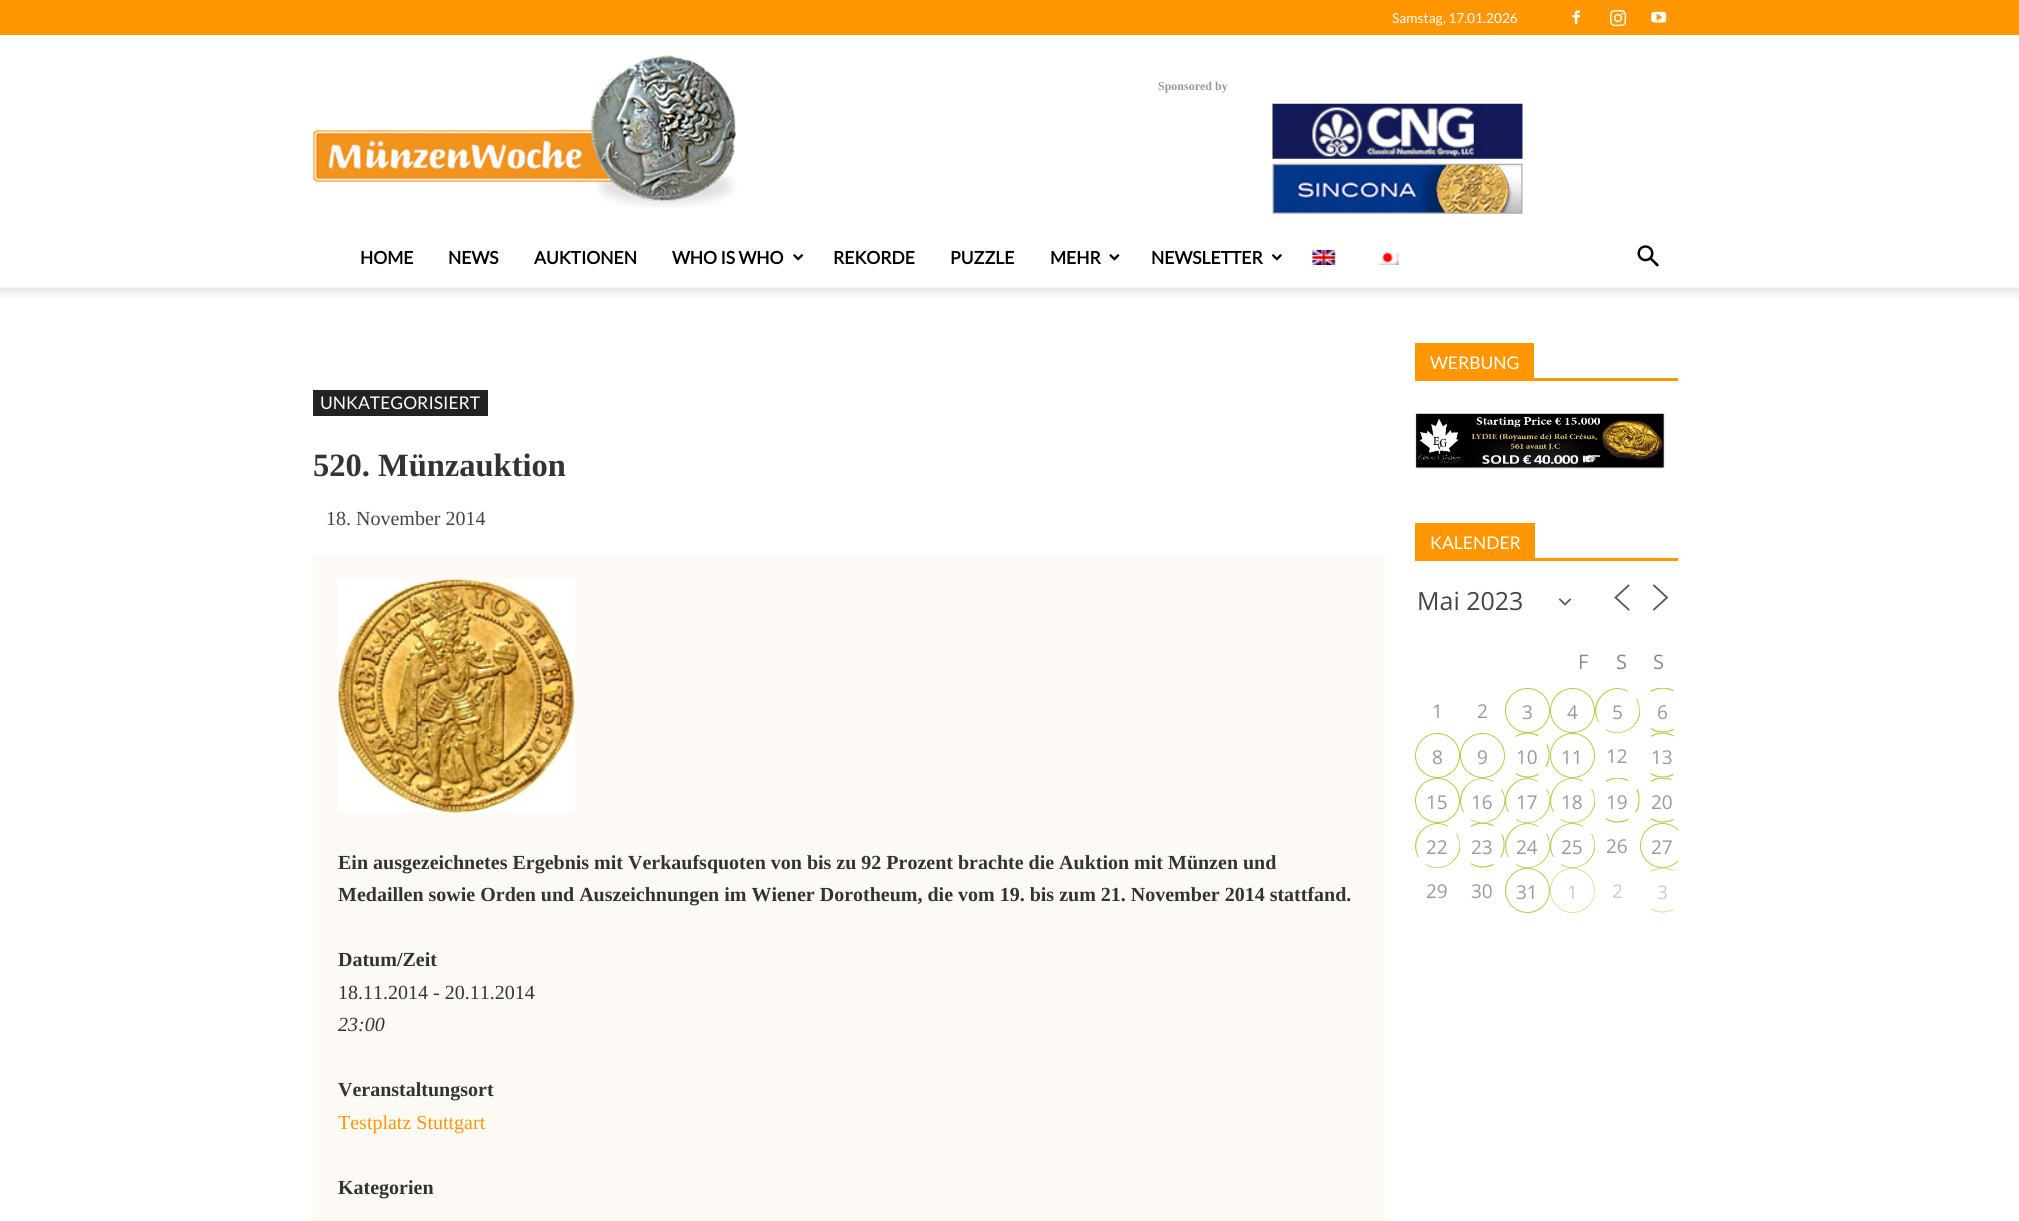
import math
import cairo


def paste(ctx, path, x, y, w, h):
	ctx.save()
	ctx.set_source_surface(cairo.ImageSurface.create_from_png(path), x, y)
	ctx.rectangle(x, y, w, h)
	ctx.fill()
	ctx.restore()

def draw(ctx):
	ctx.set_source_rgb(1, 1, 1)
	ctx.paint()
	ctx.set_source_rgb(1, 0.588, 0.008)
	ctx.rectangle(0, 0, 2019, 35)
	ctx.fill()
	ctx.select_font_face('Lato')
	ctx.set_font_size(13.75)
	ctx.set_source_rgb(1, 1, 1)
	ctx.move_to(1392, 23)
	ctx.show_text('Samstag, 17.01.2026')
	paste(ctx, 'media/1.png', 1572, 10, 8, 14)
	paste(ctx, 'media/2.png', 1610, 10, 17, 17)
	paste(ctx, 'media/3.png', 1651, 11, 16, 12)
	paste(ctx, 'media/4.png', 312, 54, 425, 154)
	ctx.select_font_face('Liberation Serif', cairo.FONT_SLANT_NORMAL, cairo.FONT_WEIGHT_BOLD)
	ctx.set_font_size(12)
	ctx.set_source_rgb(0.6, 0.6, 0.6)
	ctx.move_to(1158, 90)
	ctx.show_text('Sponsored by')
	paste(ctx, 'media/5.png', 1272, 103, 251, 56)
	paste(ctx, 'media/6.png', 1272, 163, 251, 51)
	ctx.select_font_face('Lato', cairo.FONT_SLANT_NORMAL, cairo.FONT_WEIGHT_BOLD)
	ctx.set_font_size(17.5)
	ctx.set_source_rgb(0, 0, 0)
	for x, y, s in [
		(360, 264, 'HOME'),
		(448, 264, 'NEWS'),
		(534, 264, 'AUKTIONEN'),
		(672, 264, 'WHO IS WHO'),
	]:
		ctx.move_to(x, y)
		ctx.show_text(s)
	paste(ctx, 'media/7.png', 793, 254, 11, 7)
	for x, y, s in [
		(833, 264, 'REKORDE'),
		(950, 264, 'PUZZLE'),
		(1050, 264, 'MEHR'),
	]:
		ctx.move_to(x, y)
		ctx.show_text(s)
	paste(ctx, 'media/8.png', 1109, 254, 11, 7)
	ctx.move_to(1151, 264)
	ctx.show_text('NEWSLETTER')
	paste(ctx, 'media/9.png', 1271, 254, 11, 7)
	paste(ctx, 'media/10.png', 1312, 250, 24, 15)
	paste(ctx, 'media/11.png', 1378, 252, 22, 13)
	paste(ctx, 'media/12.png', 1637, 245, 22, 22)
	paste(ctx, 'media/13.png', 0, 287, 2019, 11)
	ctx.set_source_rgb(0.133, 0.133, 0.133)
	ctx.rectangle(313, 390, 175, 26)
	ctx.fill()
	ctx.select_font_face('Lato')
	ctx.set_source_rgb(1, 1, 1)
	ctx.move_to(320, 409)
	ctx.show_text('UNKATEGORISIERT')
	ctx.select_font_face('Liberation Serif', cairo.FONT_SLANT_NORMAL, cairo.FONT_WEIGHT_BOLD)
	ctx.set_font_size(32.5)
	ctx.set_source_rgb(0.2, 0.2, 0.2)
	ctx.move_to(313, 476)
	ctx.show_text('520. Münzauktion')
	ctx.select_font_face('Liberation Serif')
	ctx.set_font_size(20)
	ctx.set_source_rgb(0.267, 0.267, 0.267)
	ctx.move_to(326, 525)
	ctx.show_text('18. November 2014')
	ctx.set_source_rgb(0.992, 0.98, 0.961)
	ctx.rectangle(313, 554, 1072, 667)
	ctx.fill()
	paste(ctx, 'media/14.png', 337, 578, 238, 235)
	ctx.select_font_face('Liberation Serif', cairo.FONT_SLANT_NORMAL, cairo.FONT_WEIGHT_BOLD)
	ctx.set_source_rgb(0.2, 0.2, 0.2)
	for x, y, s in [
		(338, 869, 'Ein ausgezeichnetes Ergebnis mit Verkaufsquoten von bis zu 92 Prozent brachte die Auktion mit Münzen und'),
		(338, 901, 'Medaillen sowie Orden und Auszeichnungen im Wiener Dorotheum, die vom 19. bis zum 21. November 2014 stattfand.'),
		(338, 966, 'Datum/Zeit'),
	]:
		ctx.move_to(x, y)
		ctx.show_text(s)
	ctx.select_font_face('Liberation Serif')
	ctx.move_to(338, 999)
	ctx.show_text('18.11.2014 - 20.11.2014')
	ctx.select_font_face('Liberation Serif', cairo.FONT_SLANT_ITALIC)
	ctx.move_to(338, 1031)
	ctx.show_text('23:00')
	ctx.select_font_face('Liberation Serif', cairo.FONT_SLANT_NORMAL, cairo.FONT_WEIGHT_BOLD)
	ctx.move_to(338, 1096)
	ctx.show_text('Veranstaltungsort')
	ctx.select_font_face('Liberation Serif')
	ctx.set_source_rgb(1, 0.588, 0.008)
	ctx.move_to(338, 1129)
	ctx.show_text('Testplatz Stuttgart')
	ctx.select_font_face('Liberation Serif', cairo.FONT_SLANT_NORMAL, cairo.FONT_WEIGHT_BOLD)
	ctx.set_source_rgb(0.2, 0.2, 0.2)
	ctx.move_to(338, 1194)
	ctx.show_text('Kategorien')
	ctx.set_source_rgb(1, 0.588, 0.008)
	ctx.rectangle(1415, 378, 263, 3)
	ctx.fill()
	ctx.rectangle(1415, 343, 119, 35)
	ctx.fill()
	ctx.select_font_face('Lato')
	ctx.set_font_size(17.5)
	ctx.set_source_rgb(1, 1, 1)
	ctx.move_to(1430, 369)
	ctx.show_text('WERBUNG')
	ctx.rectangle(1415.5, 413.5, 249, 55)
	ctx.set_source_rgb(0.933, 0.933, 0.933)
	ctx.set_line_width(1)
	ctx.stroke()
	paste(ctx, 'media/15.png', 1416, 413, 248, 55)
	ctx.set_source_rgb(1, 0.588, 0.008)
	ctx.rectangle(1415, 558, 263, 3)
	ctx.fill()
	ctx.rectangle(1415, 523, 120, 35)
	ctx.fill()
	ctx.set_source_rgb(1, 1, 1)
	ctx.move_to(1430, 549)
	ctx.show_text('KALENDER')
	ctx.new_path()
	ctx.move_to(1560, 599.5)
	ctx.line_to(1565, 604.5)
	ctx.line_to(1570, 599.5)
	ctx.set_source_rgb(0.333, 0.333, 0.333)
	ctx.set_line_width(1.7)
	ctx.set_line_cap(cairo.LINE_CAP_SQUARE)
	ctx.stroke()
	ctx.select_font_face('Open Sans')
	ctx.set_font_size(25)
	ctx.set_source_rgb(0.267, 0.267, 0.267)
	ctx.move_to(1417, 610)
	ctx.show_text('Mai 2023')
	ctx.new_path()
	ctx.move_to(1628.5, 609.5)
	ctx.line_to(1615.5, 597.5)
	ctx.line_to(1628.5, 585.5)
	ctx.move_to(1654, 609.5)
	ctx.line_to(1667, 597.5)
	ctx.line_to(1654, 585.5)
	ctx.set_source_rgb(0.333, 0.333, 0.333)
	ctx.set_line_width(1.8)
	ctx.stroke()
	ctx.set_font_size(20)
	ctx.set_source_rgb(0.533, 0.533, 0.533)
	for x, y, s in [
		(1578, 669, 'F'),
		(1616, 669, 'S'),
		(1653, 669, 'S'),
	]:
		ctx.move_to(x, y)
		ctx.show_text(s)
	ctx.set_font_size(19)
	ctx.set_source_rgb(0.6, 0.6, 0.6)
	ctx.move_to(1432, 718)
	ctx.show_text('1')
	ctx.move_to(1477, 718)
	ctx.show_text('2')
	ctx.new_path()
	ctx.arc(1527.5, 710.5, 22, 0, 2 * math.pi)
	ctx.set_source_rgb(0.659, 0.82, 0.267)
	ctx.set_line_width(1)
	ctx.set_line_cap(cairo.LINE_CAP_BUTT)
	ctx.stroke()
	ctx.set_source_rgb(0.6, 0.6, 0.6)
	ctx.move_to(1522, 719)
	ctx.show_text('3')
	ctx.new_path()
	ctx.arc(1572.5, 710.5, 22, 0, 2 * math.pi)
	ctx.set_source_rgb(0.659, 0.82, 0.267)
	ctx.stroke()
	ctx.set_source_rgb(0.6, 0.6, 0.6)
	ctx.move_to(1567, 719)
	ctx.show_text('4')
	ctx.set_source_rgb(0.659, 0.82, 0.267)
	ctx.set_fill_rule(cairo.FILL_RULE_EVEN_ODD)
	ctx.new_path()
	ctx.move_to(1618, 689)
	ctx.curve_to(1601, 689, 1591, 708, 1599, 722)
	ctx.line_to(1598, 722)
	ctx.curve_to(1587, 702, 1609, 680, 1628, 691)
	ctx.line_to(1628, 692)
	ctx.curve_to(1625, 690, 1621, 689, 1618, 689)
	ctx.close_path()
	ctx.move_to(1640, 715)
	ctx.curve_to(1636, 730, 1619, 738, 1606, 730)
	ctx.line_to(1606, 729)
	ctx.curve_to(1625, 741, 1648, 719, 1636, 699)
	ctx.line_to(1637, 699)
	ctx.curve_to(1640, 704, 1640, 709, 1640, 715)
	ctx.close_path()
	ctx.fill()
	ctx.set_source_rgb(0.6, 0.6, 0.6)
	ctx.move_to(1612, 719)
	ctx.show_text('5')
	ctx.save()
	ctx.set_fill_rule(cairo.FILL_RULE_WINDING)
	ctx.rectangle(1415, 523, 263, 390)
	ctx.clip()
	ctx.new_path()
	ctx.move_to(1639.5, 699.5)
	ctx.line_to(1651, 699.5)
	ctx.line_to(1651, 688)
	ctx.line_to(1673.5, 688)
	ctx.line_to(1673.5, 699.5)
	ctx.line_to(1684.5, 699.5)
	ctx.line_to(1684.5, 722)
	ctx.line_to(1673.5, 722)
	ctx.line_to(1673.5, 733)
	ctx.line_to(1651, 733)
	ctx.line_to(1651, 722)
	ctx.line_to(1639.5, 722)
	ctx.close_path()
	ctx.clip()
	ctx.new_path()
	ctx.move_to(1647, 694.5)
	ctx.curve_to(1652, 689.5, 1659.5, 687, 1667, 688.5)
	ctx.curve_to(1692.5, 693.5, 1688.5, 732, 1662.5, 732)
	ctx.curve_to(1656.5, 732, 1651, 729.5, 1647, 725.5)
	ctx.set_source_rgb(0.659, 0.82, 0.267)
	ctx.set_line_width(1.2)
	ctx.stroke()
	ctx.restore()
	ctx.move_to(1657, 719)
	ctx.show_text('6')
	ctx.new_path()
	ctx.arc(1437.5, 755.5, 22, 0, 2 * math.pi)
	ctx.set_source_rgb(0.659, 0.82, 0.267)
	ctx.stroke()
	ctx.set_source_rgb(0.6, 0.6, 0.6)
	ctx.move_to(1432, 764)
	ctx.show_text('8')
	ctx.new_path()
	ctx.arc(1482.5, 755.5, 22, 0, 2 * math.pi)
	ctx.set_source_rgb(0.659, 0.82, 0.267)
	ctx.stroke()
	ctx.set_source_rgb(0.6, 0.6, 0.6)
	ctx.move_to(1477, 764)
	ctx.show_text('9')
	ctx.save()
	ctx.set_fill_rule(cairo.FILL_RULE_WINDING)
	ctx.new_path()
	ctx.move_to(1504.5, 744.5)
	ctx.line_to(1516, 744.5)
	ctx.line_to(1516, 733)
	ctx.line_to(1538.5, 733)
	ctx.line_to(1538.5, 744.5)
	ctx.line_to(1549.5, 744.5)
	ctx.line_to(1549.5, 767)
	ctx.line_to(1538.5, 767)
	ctx.line_to(1538.5, 778)
	ctx.line_to(1516, 778)
	ctx.line_to(1516, 767)
	ctx.line_to(1504.5, 767)
	ctx.close_path()
	ctx.clip()
	ctx.new_path()
	ctx.move_to(1512, 739.5)
	ctx.curve_to(1517, 734.5, 1524.5, 732, 1532, 733.5)
	ctx.curve_to(1557.5, 738.5, 1553.5, 777, 1527.5, 777)
	ctx.curve_to(1521.5, 777, 1516, 774.5, 1512, 770.5)
	ctx.set_source_rgb(0.659, 0.82, 0.267)
	ctx.set_line_width(1.2)
	ctx.stroke()
	ctx.restore()
	ctx.move_to(1516, 764)
	ctx.show_text('10')
	ctx.new_path()
	ctx.arc(1572.5, 755.5, 22, 0, 2 * math.pi)
	ctx.set_source_rgb(0.659, 0.82, 0.267)
	ctx.stroke()
	ctx.set_source_rgb(0.6, 0.6, 0.6)
	ctx.move_to(1561, 764)
	ctx.show_text('11')
	ctx.move_to(1606, 763)
	ctx.show_text('12')
	ctx.save()
	ctx.set_fill_rule(cairo.FILL_RULE_WINDING)
	ctx.rectangle(1415, 523, 263, 390)
	ctx.clip()
	ctx.new_path()
	ctx.move_to(1639.5, 744.5)
	ctx.line_to(1651, 744.5)
	ctx.line_to(1651, 733)
	ctx.line_to(1673.5, 733)
	ctx.line_to(1673.5, 744.5)
	ctx.line_to(1684.5, 744.5)
	ctx.line_to(1684.5, 767)
	ctx.line_to(1673.5, 767)
	ctx.line_to(1673.5, 778)
	ctx.line_to(1651, 778)
	ctx.line_to(1651, 767)
	ctx.line_to(1639.5, 767)
	ctx.close_path()
	ctx.clip()
	ctx.new_path()
	ctx.move_to(1647, 739.5)
	ctx.curve_to(1652, 734.5, 1659.5, 732, 1667, 733.5)
	ctx.curve_to(1692.5, 738.5, 1688.5, 777, 1662.5, 777)
	ctx.curve_to(1656.5, 777, 1651, 774.5, 1647, 770.5)
	ctx.set_source_rgb(0.659, 0.82, 0.267)
	ctx.set_line_width(1.2)
	ctx.stroke()
	ctx.restore()
	ctx.move_to(1651, 764)
	ctx.show_text('13')
	ctx.new_path()
	ctx.arc(1437.5, 800.5, 22, 0, 2 * math.pi)
	ctx.set_source_rgb(0.659, 0.82, 0.267)
	ctx.stroke()
	ctx.set_source_rgb(0.6, 0.6, 0.6)
	ctx.move_to(1426, 809)
	ctx.show_text('15')
	ctx.set_source_rgb(0.659, 0.82, 0.267)
	ctx.new_path()
	ctx.move_to(1482, 779)
	ctx.curve_to(1466, 779, 1456, 798, 1464, 812)
	ctx.line_to(1463, 812)
	ctx.curve_to(1452, 792, 1474, 770, 1493, 781)
	ctx.line_to(1493, 782)
	ctx.curve_to(1490, 780, 1486, 779, 1482, 779)
	ctx.close_path()
	ctx.move_to(1505, 805)
	ctx.curve_to(1501, 820, 1484, 828, 1471, 820)
	ctx.line_to(1471, 819)
	ctx.curve_to(1490, 831, 1513, 809, 1501, 789)
	ctx.line_to(1502, 789)
	ctx.curve_to(1505, 794, 1505, 799, 1505, 805)
	ctx.close_path()
	ctx.fill()
	ctx.set_source_rgb(0.6, 0.6, 0.6)
	ctx.move_to(1471, 809)
	ctx.show_text('16')
	ctx.set_source_rgb(0.659, 0.82, 0.267)
	ctx.new_path()
	ctx.move_to(1528, 779)
	ctx.curve_to(1511, 779, 1501, 798, 1509, 812)
	ctx.line_to(1508, 812)
	ctx.curve_to(1497, 792, 1519, 770, 1538, 781)
	ctx.line_to(1538, 782)
	ctx.curve_to(1535, 780, 1531, 779, 1528, 779)
	ctx.close_path()
	ctx.move_to(1550, 805)
	ctx.curve_to(1546, 820, 1529, 828, 1516, 820)
	ctx.line_to(1516, 819)
	ctx.curve_to(1535, 831, 1558, 809, 1546, 789)
	ctx.line_to(1547, 789)
	ctx.curve_to(1550, 794, 1550, 799, 1550, 805)
	ctx.close_path()
	ctx.fill()
	ctx.set_source_rgb(0.6, 0.6, 0.6)
	ctx.move_to(1516, 809)
	ctx.show_text('17')
	ctx.set_source_rgb(0.659, 0.82, 0.267)
	ctx.new_path()
	ctx.move_to(1572, 779)
	ctx.curve_to(1556, 779, 1546, 798, 1554, 812)
	ctx.line_to(1553, 812)
	ctx.curve_to(1542, 792, 1564, 770, 1583, 781)
	ctx.line_to(1583, 782)
	ctx.curve_to(1580, 780, 1576, 779, 1572, 779)
	ctx.close_path()
	ctx.move_to(1595, 805)
	ctx.curve_to(1591, 820, 1574, 828, 1561, 820)
	ctx.line_to(1561, 819)
	ctx.curve_to(1580, 831, 1603, 809, 1591, 789)
	ctx.line_to(1592, 789)
	ctx.curve_to(1595, 794, 1595, 799, 1595, 805)
	ctx.close_path()
	ctx.fill()
	ctx.set_source_rgb(0.6, 0.6, 0.6)
	ctx.move_to(1561, 809)
	ctx.show_text('18')
	ctx.save()
	ctx.set_fill_rule(cairo.FILL_RULE_WINDING)
	ctx.new_path()
	ctx.move_to(1594.5, 789.5)
	ctx.line_to(1606, 789.5)
	ctx.line_to(1606, 778)
	ctx.line_to(1628.5, 778)
	ctx.line_to(1628.5, 789.5)
	ctx.line_to(1639.5, 789.5)
	ctx.line_to(1639.5, 812)
	ctx.line_to(1628.5, 812)
	ctx.line_to(1628.5, 823)
	ctx.line_to(1606, 823)
	ctx.line_to(1606, 812)
	ctx.line_to(1594.5, 812)
	ctx.close_path()
	ctx.clip()
	ctx.new_path()
	ctx.move_to(1602, 784.5)
	ctx.curve_to(1607, 779.5, 1614.5, 777, 1622, 778.5)
	ctx.curve_to(1647.5, 783.5, 1643.5, 822, 1617.5, 822)
	ctx.curve_to(1611.5, 822, 1606, 819.5, 1602, 815.5)
	ctx.set_source_rgb(0.659, 0.82, 0.267)
	ctx.set_line_width(1.2)
	ctx.stroke()
	ctx.restore()
	ctx.move_to(1606, 809)
	ctx.show_text('19')
	ctx.save()
	ctx.set_fill_rule(cairo.FILL_RULE_WINDING)
	ctx.rectangle(1415, 523, 263, 390)
	ctx.clip()
	ctx.new_path()
	ctx.move_to(1639.5, 789.5)
	ctx.line_to(1651, 789.5)
	ctx.line_to(1651, 778)
	ctx.line_to(1673.5, 778)
	ctx.line_to(1673.5, 789.5)
	ctx.line_to(1684.5, 789.5)
	ctx.line_to(1684.5, 812)
	ctx.line_to(1673.5, 812)
	ctx.line_to(1673.5, 823)
	ctx.line_to(1651, 823)
	ctx.line_to(1651, 812)
	ctx.line_to(1639.5, 812)
	ctx.close_path()
	ctx.clip()
	ctx.new_path()
	ctx.move_to(1647, 784.5)
	ctx.curve_to(1652, 779.5, 1659.5, 777, 1667, 778.5)
	ctx.curve_to(1692.5, 783.5, 1688.5, 822, 1662.5, 822)
	ctx.curve_to(1656.5, 822, 1651, 819.5, 1647, 815.5)
	ctx.set_source_rgb(0.659, 0.82, 0.267)
	ctx.set_line_width(1.2)
	ctx.stroke()
	ctx.restore()
	ctx.set_source_rgb(1, 1, 1)
	ctx.new_path()
	ctx.move_to(1679, 775)
	ctx.line_to(1678, 775)
	ctx.line_to(1678, 793)
	ctx.line_to(1679, 793)
	ctx.curve_to(1674, 793, 1670, 789, 1670, 784)
	ctx.curve_to(1670, 779, 1674, 775, 1679, 775)
	ctx.close_path()
	ctx.fill()
	ctx.set_source_rgb(0.6, 0.6, 0.6)
	ctx.move_to(1651, 809)
	ctx.show_text('20')
	ctx.set_source_rgb(0.659, 0.82, 0.267)
	ctx.new_path()
	ctx.move_to(1438, 824)
	ctx.curve_to(1421, 824, 1411, 843, 1419, 857)
	ctx.line_to(1418, 857)
	ctx.curve_to(1407, 837, 1429, 815, 1448, 826)
	ctx.line_to(1448, 827)
	ctx.curve_to(1445, 825, 1441, 824, 1438, 824)
	ctx.close_path()
	ctx.move_to(1460, 850)
	ctx.curve_to(1456, 865, 1439, 873, 1426, 865)
	ctx.line_to(1426, 864)
	ctx.curve_to(1445, 876, 1468, 854, 1456, 834)
	ctx.line_to(1457, 834)
	ctx.curve_to(1460, 839, 1460, 844, 1460, 850)
	ctx.close_path()
	ctx.fill()
	ctx.set_source_rgb(0.6, 0.6, 0.6)
	ctx.move_to(1426, 854)
	ctx.show_text('22')
	ctx.save()
	ctx.set_fill_rule(cairo.FILL_RULE_WINDING)
	ctx.new_path()
	ctx.move_to(1459.5, 834.5)
	ctx.line_to(1471, 834.5)
	ctx.line_to(1471, 823)
	ctx.line_to(1493.5, 823)
	ctx.line_to(1493.5, 834.5)
	ctx.line_to(1504.5, 834.5)
	ctx.line_to(1504.5, 857)
	ctx.line_to(1493.5, 857)
	ctx.line_to(1493.5, 868)
	ctx.line_to(1471, 868)
	ctx.line_to(1471, 857)
	ctx.line_to(1459.5, 857)
	ctx.close_path()
	ctx.clip()
	ctx.new_path()
	ctx.move_to(1467, 829.5)
	ctx.curve_to(1472, 824.5, 1479.5, 822, 1487, 823.5)
	ctx.curve_to(1512.5, 828.5, 1508.5, 867, 1482.5, 867)
	ctx.curve_to(1476.5, 867, 1471, 864.5, 1467, 860.5)
	ctx.set_source_rgb(0.659, 0.82, 0.267)
	ctx.set_line_width(1.2)
	ctx.stroke()
	ctx.restore()
	ctx.move_to(1471, 854)
	ctx.show_text('23')
	ctx.set_source_rgb(0.659, 0.82, 0.267)
	ctx.new_path()
	ctx.move_to(1528, 824)
	ctx.curve_to(1511, 824, 1501, 843, 1509, 857)
	ctx.line_to(1508, 857)
	ctx.curve_to(1497, 837, 1519, 815, 1538, 826)
	ctx.line_to(1538, 827)
	ctx.curve_to(1535, 825, 1531, 824, 1528, 824)
	ctx.close_path()
	ctx.move_to(1550, 850)
	ctx.curve_to(1546, 865, 1529, 873, 1516, 865)
	ctx.line_to(1516, 864)
	ctx.curve_to(1535, 876, 1558, 854, 1546, 834)
	ctx.line_to(1547, 834)
	ctx.curve_to(1550, 839, 1550, 844, 1550, 850)
	ctx.close_path()
	ctx.fill()
	ctx.set_source_rgb(0.6, 0.6, 0.6)
	ctx.move_to(1516, 854)
	ctx.show_text('24')
	ctx.set_source_rgb(0.659, 0.82, 0.267)
	ctx.new_path()
	ctx.move_to(1572, 824)
	ctx.curve_to(1556, 824, 1546, 843, 1554, 857)
	ctx.line_to(1553, 857)
	ctx.curve_to(1542, 837, 1564, 815, 1583, 826)
	ctx.line_to(1583, 827)
	ctx.curve_to(1580, 825, 1576, 824, 1572, 824)
	ctx.close_path()
	ctx.move_to(1595, 850)
	ctx.curve_to(1591, 865, 1574, 873, 1561, 865)
	ctx.line_to(1561, 864)
	ctx.curve_to(1580, 876, 1603, 854, 1591, 834)
	ctx.line_to(1592, 834)
	ctx.curve_to(1595, 839, 1595, 844, 1595, 850)
	ctx.close_path()
	ctx.fill()
	ctx.set_source_rgb(0.6, 0.6, 0.6)
	ctx.move_to(1561, 854)
	ctx.show_text('25')
	ctx.move_to(1606, 853)
	ctx.show_text('26')
	ctx.save()
	ctx.set_fill_rule(cairo.FILL_RULE_WINDING)
	ctx.rectangle(1415, 523, 263, 390)
	ctx.clip()
	ctx.arc(1662.5, 845.5, 22, 0, 2 * math.pi)
	ctx.set_source_rgb(0.659, 0.82, 0.267)
	ctx.stroke()
	ctx.restore()
	for x, y, s in [
		(1651, 854, '27'),
		(1426, 898, '29'),
		(1471, 898, '30'),
	]:
		ctx.move_to(x, y)
		ctx.show_text(s)
	ctx.new_path()
	ctx.arc(1527.5, 890.5, 22, 0, 2 * math.pi)
	ctx.set_source_rgb(0.659, 0.82, 0.267)
	ctx.stroke()
	ctx.set_source_rgb(0.6, 0.6, 0.6)
	ctx.move_to(1516, 899)
	ctx.show_text('31')
	ctx.new_path()
	ctx.arc(1572.5, 890.5, 22, 0, 2 * math.pi)
	ctx.set_source_rgba(0.659, 0.82, 0.267, 0.5)
	ctx.stroke()
	ctx.set_source_rgb(0.8, 0.8, 0.8)
	ctx.move_to(1567, 899)
	ctx.show_text('1')
	ctx.move_to(1612, 898)
	ctx.show_text('2')
	ctx.save()
	ctx.set_fill_rule(cairo.FILL_RULE_WINDING)
	ctx.rectangle(1415, 523, 263, 390)
	ctx.clip()
	ctx.new_path()
	ctx.move_to(1639.5, 879.5)
	ctx.line_to(1651, 879.5)
	ctx.line_to(1651, 868)
	ctx.line_to(1673.5, 868)
	ctx.line_to(1673.5, 879.5)
	ctx.line_to(1684.5, 879.5)
	ctx.line_to(1684.5, 902)
	ctx.line_to(1673.5, 902)
	ctx.line_to(1673.5, 913)
	ctx.line_to(1651, 913)
	ctx.line_to(1651, 902)
	ctx.line_to(1639.5, 902)
	ctx.close_path()
	ctx.clip()
	ctx.new_path()
	ctx.move_to(1647, 874.5)
	ctx.curve_to(1652, 869.5, 1659.5, 867, 1667, 868.5)
	ctx.curve_to(1692.5, 873.5, 1688.5, 912, 1662.5, 912)
	ctx.curve_to(1656.5, 912, 1651, 909.5, 1647, 905.5)
	ctx.set_source_rgb(0.831, 0.91, 0.635)
	ctx.set_line_width(1.2)
	ctx.stroke()
	ctx.restore()
	ctx.move_to(1657, 899)
	ctx.show_text('3')


surface = cairo.ImageSurface(cairo.FORMAT_RGB24, 2019, 1221)
ctx = cairo.Context(surface)
options = cairo.FontOptions()
options.set_hint_metrics(cairo.HINT_METRICS_OFF)
options.set_hint_style(cairo.HINT_STYLE_NONE)
ctx.set_font_options(options)
ctx.set_miter_limit(4)
draw(ctx)
surface.write_to_png('image.png')
